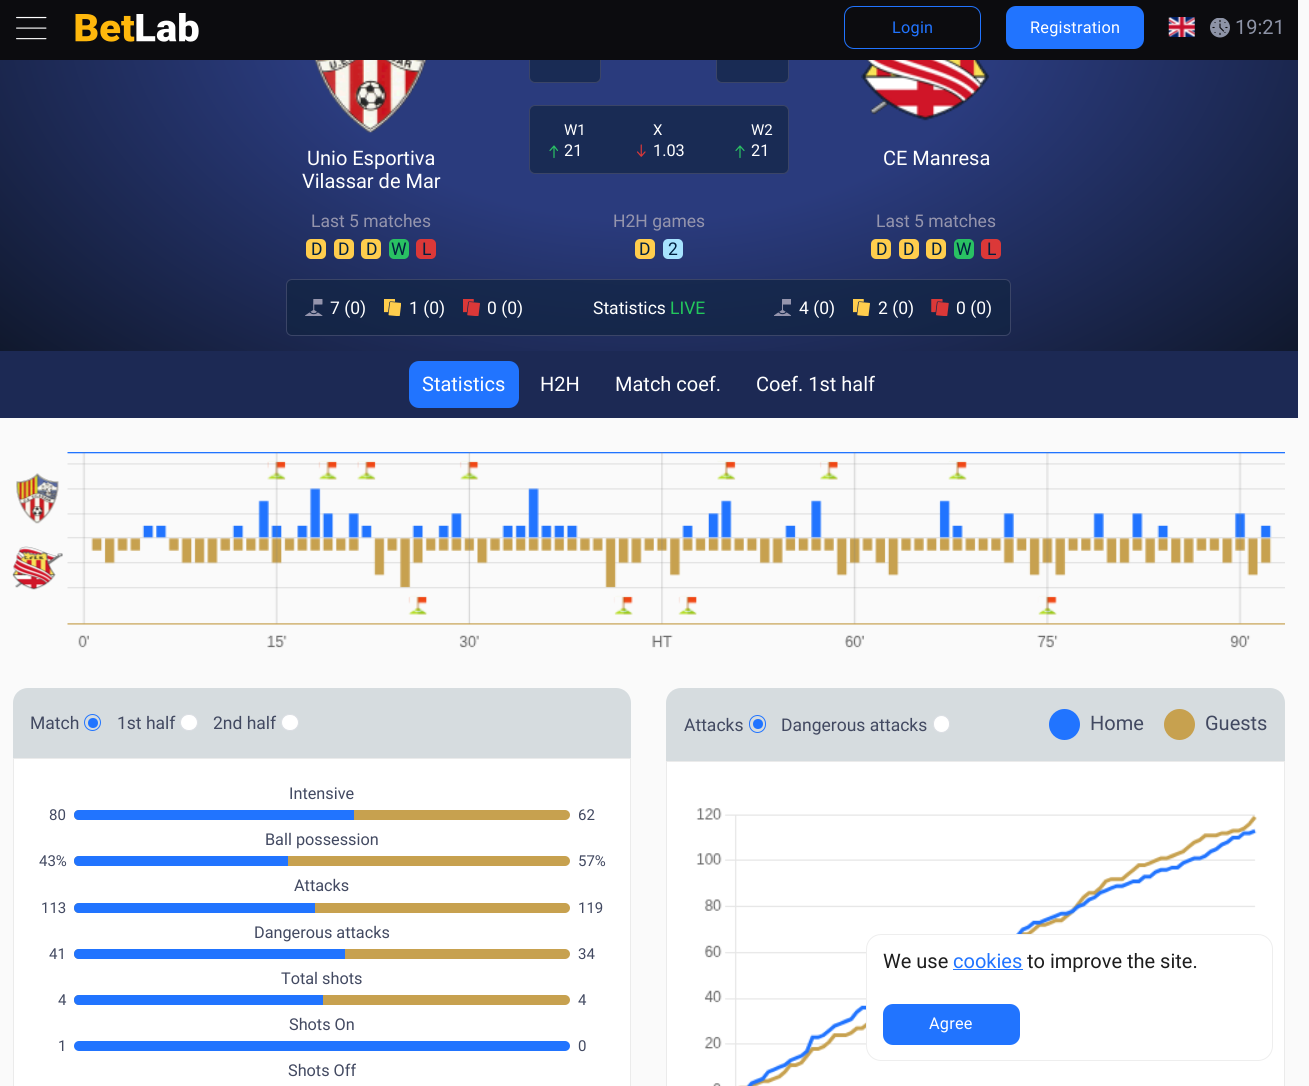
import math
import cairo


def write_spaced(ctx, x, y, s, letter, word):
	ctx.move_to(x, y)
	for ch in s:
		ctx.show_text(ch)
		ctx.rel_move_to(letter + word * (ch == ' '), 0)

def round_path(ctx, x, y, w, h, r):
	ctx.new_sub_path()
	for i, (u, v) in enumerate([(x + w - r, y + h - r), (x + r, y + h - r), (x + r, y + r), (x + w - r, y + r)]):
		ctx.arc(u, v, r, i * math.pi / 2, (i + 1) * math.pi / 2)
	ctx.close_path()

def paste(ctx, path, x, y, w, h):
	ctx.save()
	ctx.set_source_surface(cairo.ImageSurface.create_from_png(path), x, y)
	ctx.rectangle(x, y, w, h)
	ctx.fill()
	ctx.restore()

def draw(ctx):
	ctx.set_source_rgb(0.98, 0.98, 0.98)
	ctx.paint()
	gradient = cairo.RadialGradient(0, 0, 0, 0, 0, 1)
	gradient.set_matrix(cairo.Matrix(1 / 882, 0, 0, 1 / 530, -1 * 649 / 882, -1 * 8 / 530))
	gradient.add_color_stop_rgba(0.4, 0.165, 0.231, 0.49, 1)
	gradient.add_color_stop_rgba(1, 0.059, 0.09, 0.165, 1)
	ctx.set_source(gradient)
	ctx.rectangle(0, 60, 1298, 291)
	ctx.fill()
	ctx.set_source_rgb(0.098, 0.169, 0.329)
	round_path(ctx, 529.5, -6.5, 71, 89, 5.5)
	ctx.fill_preserve()
	ctx.set_source_rgb(0.231, 0.271, 0.404)
	ctx.set_line_width(1)
	ctx.stroke()
	ctx.set_source_rgb(0.098, 0.169, 0.329)
	round_path(ctx, 716.5, -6.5, 72, 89, 5.5)
	ctx.fill_preserve()
	ctx.set_source_rgb(0.231, 0.271, 0.404)
	ctx.stroke()
	ctx.set_source_rgb(0.047, 0.047, 0.059)
	ctx.rectangle(0, 0, 1298, 60)
	ctx.fill()
	paste(ctx, 'media/1.png', 16, 16, 31, 24)
	paste(ctx, 'media/2.png', 75, 13, 124, 29)
	round_path(ctx, 844.5, 6.5, 136, 42, 9.5)
	ctx.set_source_rgb(0.129, 0.455, 1)
	ctx.stroke()
	ctx.select_font_face('Roboto')
	ctx.set_font_size(16.25)
	write_spaced(ctx, 892, 33, 'Login', 0.25, 0)
	round_path(ctx, 1006, 6, 138, 43, 10)
	ctx.fill()
	ctx.set_source_rgb(1, 1, 1)
	write_spaced(ctx, 1030, 33, 'Registration', 0.25, 0)
	paste(ctx, 'media/3.png', 1168, 17, 27, 20)
	paste(ctx, 'media/4.png', 1210, 18, 20, 20)
	ctx.set_font_size(20)
	ctx.set_source_rgb(0.553, 0.576, 0.651)
	ctx.move_to(1235, 34)
	ctx.show_text('19:21')
	paste(ctx, 'media/5.png', 314, 60, 113, 73)
	ctx.set_source_rgb(1, 1, 1)
	ctx.move_to(307, 165)
	ctx.show_text('Unio Esportiva')
	ctx.move_to(302, 188)
	ctx.show_text('Vilassar de Mar')
	ctx.set_font_size(17.5)
	ctx.set_source_rgb(0.584, 0.584, 0.678)
	ctx.move_to(311, 227)
	ctx.show_text('Last 5 matches')
	ctx.set_source_rgb(1, 0.804, 0.302)
	round_path(ctx, 306, 239, 20, 20, 5)
	ctx.fill()
	ctx.set_source_rgb(0, 0.122, 0.247)
	ctx.move_to(311, 255)
	ctx.show_text('D')
	ctx.set_source_rgb(1, 0.804, 0.302)
	round_path(ctx, 334, 239, 20, 20, 5)
	ctx.fill()
	ctx.set_source_rgb(0, 0.122, 0.247)
	ctx.move_to(338, 255)
	ctx.show_text('D')
	ctx.set_source_rgb(1, 0.804, 0.302)
	round_path(ctx, 361, 239, 20, 20, 5)
	ctx.fill()
	ctx.set_source_rgb(0, 0.122, 0.247)
	ctx.move_to(366, 255)
	ctx.show_text('D')
	ctx.set_source_rgb(0.161, 0.757, 0.388)
	round_path(ctx, 389, 239, 20, 20, 5)
	ctx.fill()
	ctx.set_source_rgb(0, 0.122, 0.247)
	ctx.move_to(391, 255)
	ctx.show_text('W')
	ctx.set_source_rgb(0.859, 0.22, 0.22)
	round_path(ctx, 416, 239, 20, 20, 5)
	ctx.fill()
	ctx.set_source_rgb(0, 0.122, 0.247)
	ctx.move_to(422, 255)
	ctx.show_text('L')
	ctx.set_source_rgb(0.098, 0.169, 0.329)
	round_path(ctx, 529.5, 105.5, 259, 68, 5.5)
	ctx.fill_preserve()
	ctx.set_source_rgb(0.231, 0.271, 0.404)
	ctx.stroke()
	ctx.new_path()
	ctx.move_to(554, 157.5)
	ctx.line_to(554, 146)
	ctx.move_to(554, 146)
	ctx.line_to(550, 150.5)
	ctx.move_to(554, 146)
	ctx.line_to(557.5, 150.5)
	ctx.set_source_rgb(0.161, 0.757, 0.388)
	ctx.set_line_width(1.2)
	ctx.set_line_cap(cairo.LINE_CAP_ROUND)
	ctx.stroke()
	ctx.set_font_size(15)
	ctx.set_source_rgb(1, 1, 1)
	ctx.move_to(564, 135)
	ctx.show_text('W1')
	ctx.set_font_size(16.25)
	ctx.move_to(564, 156)
	ctx.show_text('21')
	paste(ctx, 'media/6.png', 636, 144, 10, 13)
	ctx.set_font_size(15)
	ctx.move_to(653, 135)
	ctx.show_text('X')
	ctx.set_font_size(16.25)
	ctx.move_to(653, 156)
	ctx.show_text('1.03')
	ctx.new_path()
	ctx.move_to(740, 157.5)
	ctx.line_to(740, 146)
	ctx.move_to(740, 146)
	ctx.line_to(736, 150.5)
	ctx.move_to(740, 146)
	ctx.line_to(744, 150.5)
	ctx.set_source_rgb(0.161, 0.757, 0.388)
	ctx.stroke()
	ctx.set_font_size(15)
	ctx.set_source_rgb(1, 1, 1)
	ctx.move_to(751, 135)
	ctx.show_text('W2')
	ctx.set_font_size(16.25)
	ctx.move_to(751, 156)
	ctx.show_text('21')
	ctx.set_font_size(17.5)
	ctx.set_source_rgb(0.584, 0.584, 0.678)
	ctx.move_to(613, 227)
	ctx.show_text('H2H games')
	ctx.set_source_rgb(1, 0.804, 0.302)
	round_path(ctx, 635, 239, 20, 20, 5)
	ctx.fill()
	ctx.set_source_rgb(0, 0.122, 0.247)
	ctx.move_to(639, 255)
	ctx.show_text('D')
	ctx.set_source_rgb(0.655, 0.89, 1)
	round_path(ctx, 663, 239, 20, 20, 5)
	ctx.fill()
	ctx.set_source_rgb(0, 0.122, 0.247)
	ctx.move_to(668, 255)
	ctx.show_text('2')
	paste(ctx, 'media/7.png', 861, 60, 129, 61)
	ctx.set_font_size(20)
	ctx.set_source_rgb(1, 1, 1)
	ctx.move_to(883, 165)
	ctx.show_text('CE Manresa')
	ctx.set_font_size(17.5)
	ctx.set_source_rgb(0.584, 0.584, 0.678)
	ctx.move_to(876, 227)
	ctx.show_text('Last 5 matches')
	ctx.set_source_rgb(1, 0.804, 0.302)
	round_path(ctx, 871, 239, 20, 20, 5)
	ctx.fill()
	ctx.set_source_rgb(0, 0.122, 0.247)
	ctx.move_to(876, 255)
	ctx.show_text('D')
	ctx.set_source_rgb(1, 0.804, 0.302)
	round_path(ctx, 899, 239, 20, 20, 5)
	ctx.fill()
	ctx.set_source_rgb(0, 0.122, 0.247)
	ctx.move_to(903, 255)
	ctx.show_text('D')
	ctx.set_source_rgb(1, 0.804, 0.302)
	round_path(ctx, 926, 239, 20, 20, 5)
	ctx.fill()
	ctx.set_source_rgb(0, 0.122, 0.247)
	ctx.move_to(931, 255)
	ctx.show_text('D')
	ctx.set_source_rgb(0.161, 0.757, 0.388)
	round_path(ctx, 954, 239, 20, 20, 5)
	ctx.fill()
	ctx.set_source_rgb(0, 0.122, 0.247)
	ctx.move_to(956, 255)
	ctx.show_text('W')
	ctx.set_source_rgb(0.859, 0.22, 0.22)
	round_path(ctx, 981, 239, 20, 20, 5)
	ctx.fill()
	ctx.set_source_rgb(0, 0.122, 0.247)
	ctx.move_to(987, 255)
	ctx.show_text('L')
	ctx.set_source_rgba(0.067, 0.141, 0.255, 0.68)
	round_path(ctx, 286.5, 279.5, 724, 56, 5.5)
	ctx.fill_preserve()
	ctx.set_source_rgb(0.231, 0.271, 0.404)
	ctx.set_line_width(1)
	ctx.set_line_cap(cairo.LINE_CAP_BUTT)
	ctx.stroke()
	paste(ctx, 'media/8.png', 305, 299, 18, 17)
	ctx.set_source_rgb(1, 1, 1)
	ctx.move_to(330, 314)
	ctx.show_text('7 (0)')
	paste(ctx, 'media/9.png', 384, 299, 17, 17)
	ctx.move_to(409, 314)
	ctx.show_text('1 (0)')
	paste(ctx, 'media/10.png', 463, 299, 17, 17)
	ctx.move_to(487, 314)
	ctx.show_text('0 (0)')
	ctx.move_to(593, 314)
	ctx.show_text('Statistics')
	ctx.set_source_rgb(0.137, 0.78, 0.361)
	ctx.move_to(670, 314)
	ctx.show_text('LIVE')
	paste(ctx, 'media/11.png', 774, 299, 17, 17)
	ctx.set_source_rgb(1, 1, 1)
	ctx.move_to(799, 314)
	ctx.show_text('4 (0)')
	paste(ctx, 'media/12.png', 853, 299, 17, 17)
	ctx.move_to(878, 314)
	ctx.show_text('2 (0)')
	paste(ctx, 'media/13.png', 931, 299, 18, 17)
	ctx.move_to(956, 314)
	ctx.show_text('0 (0)')
	ctx.set_source_rgb(0.11, 0.161, 0.329)
	ctx.rectangle(0, 351, 1298, 67)
	ctx.fill()
	ctx.set_source_rgb(0.129, 0.455, 1)
	round_path(ctx, 409, 361, 110, 47, 10)
	ctx.fill()
	ctx.set_font_size(20)
	ctx.set_source_rgb(1, 1, 1)
	for x, y, s in [
		(422, 391, 'Statistics'),
		(540, 391, 'H2H'),
		(615, 391, 'Match coef.'),
		(756, 391, 'Coef. 1st half'),
	]:
		ctx.move_to(x, y)
		ctx.show_text(s)
	paste(ctx, 'media/14.png', 16, 473, 43, 51)
	paste(ctx, 'media/15.png', 12, 546, 51, 44)
	paste(ctx, 'media/16.png', 67, 452, 1218, 196)
	ctx.set_source_rgb(0.839, 0.863, 0.875)
	ctx.new_path()
	ctx.move_to(28, 688)
	ctx.line_to(616, 688)
	ctx.curve_to(624.5, 688, 631, 694.5, 631, 703)
	ctx.line_to(631, 758)
	ctx.line_to(13, 758)
	ctx.line_to(13, 703)
	ctx.curve_to(13, 694.5, 19.5, 688, 28, 688)
	ctx.close_path()
	ctx.fill()
	ctx.set_font_size(17.5)
	ctx.set_source_rgb(0.259, 0.286, 0.38)
	ctx.move_to(30, 729)
	ctx.show_text('Match')
	ctx.new_path()
	ctx.arc(92.5, 722.5, 8, 0, 2 * math.pi)
	ctx.set_source_rgb(0.129, 0.455, 1)
	ctx.stroke()
	ctx.arc(93, 723, 5, 0, 2 * math.pi)
	ctx.fill()
	ctx.set_source_rgb(0.259, 0.286, 0.38)
	ctx.move_to(117, 729)
	ctx.show_text('1st half')
	ctx.set_source_rgb(1, 1, 1)
	round_path(ctx, 180.5, 714.5, 17, 16, 8)
	ctx.fill_preserve()
	ctx.set_source_rgb(0.859, 0.871, 0.89)
	ctx.stroke()
	ctx.set_source_rgb(0.259, 0.286, 0.38)
	ctx.move_to(213, 729)
	ctx.show_text('2nd half')
	ctx.set_source_rgb(1, 1, 1)
	round_path(ctx, 281.5, 714.5, 17, 16, 8)
	ctx.fill_preserve()
	ctx.set_source_rgb(0.859, 0.871, 0.89)
	ctx.stroke()
	ctx.set_source_rgb(1, 1, 1)
	ctx.rectangle(13.5, 758.5, 617, 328)
	ctx.fill_preserve()
	ctx.set_source_rgb(0.918, 0.918, 0.918)
	ctx.stroke()
	ctx.set_font_size(16.25)
	ctx.set_source_rgb(0.259, 0.286, 0.38)
	ctx.move_to(289, 799)
	ctx.show_text('Intensive')
	ctx.set_font_size(15)
	ctx.move_to(49, 820)
	ctx.show_text('80')
	ctx.set_source_rgb(0.78, 0.631, 0.31)
	round_path(ctx, 74, 810, 496, 10, 5)
	ctx.fill()
	ctx.set_source_rgb(0.129, 0.455, 1)
	ctx.new_path()
	ctx.move_to(79, 810)
	ctx.line_to(354, 810)
	ctx.line_to(354, 820)
	ctx.line_to(79, 820)
	ctx.curve_to(76, 820, 74, 818, 74, 815)
	ctx.curve_to(74, 812, 76, 810, 79, 810)
	ctx.close_path()
	ctx.fill()
	ctx.set_source_rgb(0.259, 0.286, 0.38)
	ctx.move_to(578, 820)
	ctx.show_text('62')
	ctx.set_font_size(16.25)
	ctx.move_to(265, 845)
	ctx.show_text('Ball possession')
	ctx.set_font_size(15)
	ctx.move_to(39, 866)
	ctx.show_text('43%')
	ctx.set_source_rgb(0.78, 0.631, 0.31)
	round_path(ctx, 74, 856, 496, 10, 5)
	ctx.fill()
	ctx.set_source_rgb(0.129, 0.455, 1)
	ctx.new_path()
	ctx.move_to(79, 856)
	ctx.line_to(288, 856)
	ctx.line_to(288, 866)
	ctx.line_to(79, 866)
	ctx.curve_to(76, 866, 74, 864, 74, 861)
	ctx.curve_to(74, 858, 76, 856, 79, 856)
	ctx.close_path()
	ctx.fill()
	ctx.set_source_rgb(0.259, 0.286, 0.38)
	ctx.move_to(578, 866)
	ctx.show_text('57%')
	ctx.set_font_size(16.25)
	ctx.move_to(294, 891)
	ctx.show_text('Attacks')
	ctx.set_font_size(15)
	ctx.move_to(41, 913)
	ctx.show_text('113')
	ctx.set_source_rgb(0.78, 0.631, 0.31)
	round_path(ctx, 74, 903, 496, 10, 5)
	ctx.fill()
	ctx.set_source_rgb(0.129, 0.455, 1)
	ctx.new_path()
	ctx.move_to(79, 903)
	ctx.line_to(315, 903)
	ctx.line_to(315, 913)
	ctx.line_to(79, 913)
	ctx.curve_to(76, 913, 74, 911, 74, 908)
	ctx.curve_to(74, 905, 76, 903, 79, 903)
	ctx.close_path()
	ctx.fill()
	ctx.set_source_rgb(0.259, 0.286, 0.38)
	ctx.move_to(578, 913)
	ctx.show_text('119')
	ctx.set_font_size(16.25)
	ctx.move_to(254, 938)
	ctx.show_text('Dangerous attacks')
	ctx.set_font_size(15)
	ctx.move_to(49, 959)
	ctx.show_text('41')
	ctx.set_source_rgb(0.78, 0.631, 0.31)
	round_path(ctx, 74, 949, 496, 10, 5)
	ctx.fill()
	ctx.set_source_rgb(0.129, 0.455, 1)
	ctx.new_path()
	ctx.move_to(79, 949)
	ctx.line_to(345, 949)
	ctx.line_to(345, 959)
	ctx.line_to(79, 959)
	ctx.curve_to(76, 959, 74, 957, 74, 954)
	ctx.curve_to(74, 951, 76, 949, 79, 949)
	ctx.close_path()
	ctx.fill()
	ctx.set_source_rgb(0.259, 0.286, 0.38)
	ctx.move_to(578, 959)
	ctx.show_text('34')
	ctx.set_font_size(16.25)
	ctx.move_to(281, 984)
	ctx.show_text('Total shots')
	ctx.set_font_size(15)
	ctx.move_to(58, 1005)
	ctx.show_text('4')
	ctx.set_source_rgb(0.78, 0.631, 0.31)
	round_path(ctx, 74, 995, 496, 10, 5)
	ctx.fill()
	ctx.set_source_rgb(0.129, 0.455, 1)
	ctx.new_path()
	ctx.move_to(79, 995)
	ctx.line_to(323, 995)
	ctx.line_to(323, 1005)
	ctx.line_to(79, 1005)
	ctx.curve_to(76, 1005, 74, 1003, 74, 1000)
	ctx.curve_to(74, 997, 76, 995, 79, 995)
	ctx.close_path()
	ctx.fill()
	ctx.set_source_rgb(0.259, 0.286, 0.38)
	ctx.move_to(578, 1005)
	ctx.show_text('4')
	ctx.set_font_size(16.25)
	ctx.move_to(289, 1030)
	ctx.show_text('Shots On')
	ctx.set_font_size(15)
	ctx.move_to(58, 1051)
	ctx.show_text('1')
	ctx.set_source_rgb(0.129, 0.455, 1)
	round_path(ctx, 74, 1041, 496, 10, 5)
	ctx.fill()
	ctx.set_source_rgb(0.259, 0.286, 0.38)
	ctx.move_to(578, 1051)
	ctx.show_text('0')
	ctx.set_font_size(16.25)
	ctx.move_to(288, 1076)
	ctx.show_text('Shots Off')
	ctx.set_source_rgb(0.839, 0.863, 0.875)
	ctx.new_path()
	ctx.move_to(681, 688)
	ctx.line_to(1270, 688)
	ctx.curve_to(1278.5, 688, 1285, 694.5, 1285, 703)
	ctx.line_to(1285, 761)
	ctx.line_to(666, 761)
	ctx.line_to(666, 703)
	ctx.curve_to(666, 694.5, 672.5, 688, 681, 688)
	ctx.close_path()
	ctx.fill()
	ctx.set_font_size(17.5)
	ctx.set_source_rgb(0.259, 0.286, 0.38)
	ctx.move_to(684, 731)
	ctx.show_text('Attacks')
	round_path(ctx, 749.5, 715.5, 16, 17, 8)
	ctx.set_source_rgb(0.129, 0.455, 1)
	ctx.stroke()
	ctx.arc(758, 724, 5, 0, 2 * math.pi)
	ctx.fill()
	ctx.set_source_rgb(0.259, 0.286, 0.38)
	ctx.move_to(781, 731)
	ctx.show_text('Dangerous attacks')
	ctx.set_source_rgb(1, 1, 1)
	round_path(ctx, 933.5, 715.5, 16, 17, 8)
	ctx.fill_preserve()
	ctx.set_source_rgb(0.859, 0.871, 0.89)
	ctx.stroke()
	ctx.set_source_rgb(0.129, 0.455, 1)
	ctx.arc(1064.5, 724.5, 15.5, 0, 2 * math.pi)
	ctx.fill()
	ctx.set_font_size(20)
	ctx.set_source_rgb(0.259, 0.286, 0.38)
	ctx.move_to(1090, 730)
	ctx.show_text('Home')
	ctx.set_source_rgb(0.78, 0.631, 0.31)
	ctx.new_path()
	ctx.arc(1179.5, 724.5, 15.5, 0, 2 * math.pi)
	ctx.fill()
	ctx.set_source_rgb(0.259, 0.286, 0.38)
	ctx.move_to(1205, 730)
	ctx.show_text('Guests')
	ctx.set_source_rgb(1, 1, 1)
	ctx.rectangle(666.5, 761.5, 618, 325)
	ctx.fill_preserve()
	ctx.set_source_rgb(0.918, 0.918, 0.918)
	ctx.stroke()
	paste(ctx, 'media/17.png', 696, 808, 561, 278)
	ctx.set_source_rgb(1, 1, 1)
	round_path(ctx, 866.5, 934.5, 406, 126, 14.5)
	ctx.fill_preserve()
	ctx.set_source_rgb(0.933, 0.933, 0.933)
	ctx.stroke()
	ctx.set_source_rgb(0.114, 0.114, 0.114)
	ctx.move_to(883, 968)
	ctx.show_text('We use')
	ctx.set_source_rgb(0.129, 0.455, 1)
	ctx.move_to(953, 968)
	ctx.show_text('cookies')
	ctx.rectangle(953, 969, 70, 1)
	ctx.fill()
	ctx.set_source_rgb(0.114, 0.114, 0.114)
	ctx.move_to(1027, 968)
	ctx.show_text('to improve the site.')
	ctx.set_source_rgb(0.129, 0.455, 1)
	round_path(ctx, 883, 1004, 137, 41, 10)
	ctx.fill()
	ctx.set_font_size(16.25)
	ctx.set_source_rgb(1, 1, 1)
	write_spaced(ctx, 929, 1029, 'Agree', 0.25, 0)


surface = cairo.ImageSurface(cairo.FORMAT_RGB24, 1309, 1086)
ctx = cairo.Context(surface)
options = cairo.FontOptions()
options.set_hint_metrics(cairo.HINT_METRICS_OFF)
options.set_hint_style(cairo.HINT_STYLE_NONE)
ctx.set_font_options(options)
ctx.set_miter_limit(4)
draw(ctx)
surface.write_to_png('image.png')
